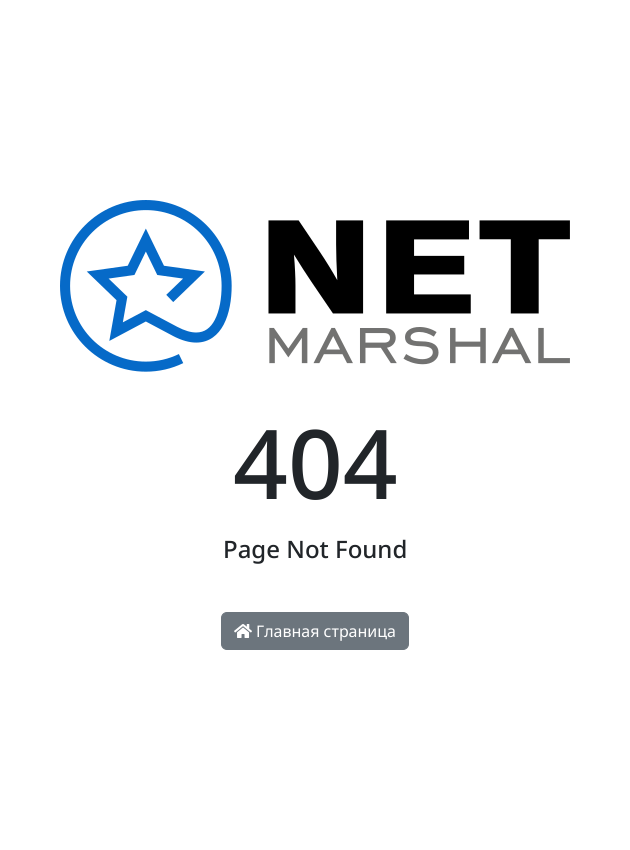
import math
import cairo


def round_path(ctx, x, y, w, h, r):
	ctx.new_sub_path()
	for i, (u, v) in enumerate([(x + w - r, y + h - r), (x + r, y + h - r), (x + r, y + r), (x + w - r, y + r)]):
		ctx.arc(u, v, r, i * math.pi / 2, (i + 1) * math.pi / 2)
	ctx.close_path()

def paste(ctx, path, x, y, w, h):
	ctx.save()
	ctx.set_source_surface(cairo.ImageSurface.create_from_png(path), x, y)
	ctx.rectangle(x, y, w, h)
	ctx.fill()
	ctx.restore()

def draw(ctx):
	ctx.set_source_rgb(1, 1, 1)
	ctx.paint()
	paste(ctx, 'media/1.png', 60, 200, 510, 172)
	ctx.select_font_face('Noto Sans Medium')
	ctx.set_font_size(96)
	ctx.set_source_rgb(0.129, 0.145, 0.161)
	ctx.move_to(233, 499)
	ctx.show_text('404')
	ctx.set_font_size(24)
	ctx.move_to(223, 558)
	ctx.show_text('Page Not Found')
	ctx.set_source_rgb(0.424, 0.459, 0.49)
	round_path(ctx, 221.5, 612.5, 187, 37, 5.5)
	ctx.fill_preserve()
	ctx.set_line_width(1)
	ctx.stroke()
	paste(ctx, 'media/2.png', 234, 624, 18, 14)
	ctx.select_font_face('Noto Sans')
	ctx.set_font_size(16)
	ctx.set_source_rgb(1, 1, 1)
	ctx.move_to(256, 637)
	ctx.show_text('Главная страница')


surface = cairo.ImageSurface(cairo.FORMAT_RGB24, 630, 850)
ctx = cairo.Context(surface)
options = cairo.FontOptions()
options.set_hint_metrics(cairo.HINT_METRICS_OFF)
options.set_hint_style(cairo.HINT_STYLE_NONE)
ctx.set_font_options(options)
ctx.set_miter_limit(4)
draw(ctx)
surface.write_to_png('image.png')
